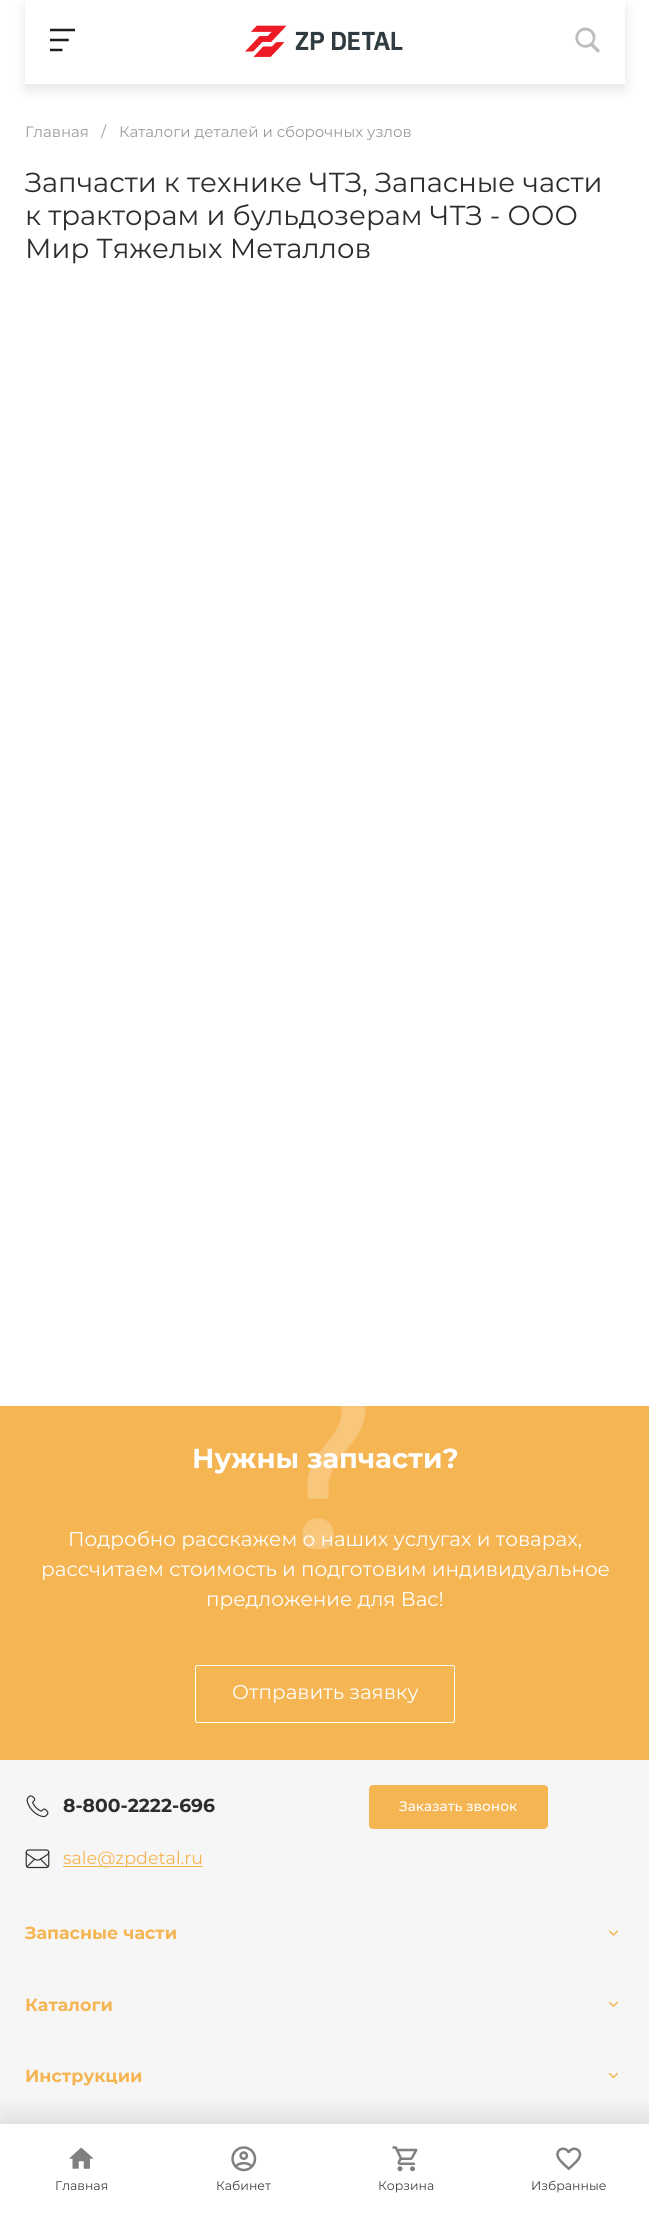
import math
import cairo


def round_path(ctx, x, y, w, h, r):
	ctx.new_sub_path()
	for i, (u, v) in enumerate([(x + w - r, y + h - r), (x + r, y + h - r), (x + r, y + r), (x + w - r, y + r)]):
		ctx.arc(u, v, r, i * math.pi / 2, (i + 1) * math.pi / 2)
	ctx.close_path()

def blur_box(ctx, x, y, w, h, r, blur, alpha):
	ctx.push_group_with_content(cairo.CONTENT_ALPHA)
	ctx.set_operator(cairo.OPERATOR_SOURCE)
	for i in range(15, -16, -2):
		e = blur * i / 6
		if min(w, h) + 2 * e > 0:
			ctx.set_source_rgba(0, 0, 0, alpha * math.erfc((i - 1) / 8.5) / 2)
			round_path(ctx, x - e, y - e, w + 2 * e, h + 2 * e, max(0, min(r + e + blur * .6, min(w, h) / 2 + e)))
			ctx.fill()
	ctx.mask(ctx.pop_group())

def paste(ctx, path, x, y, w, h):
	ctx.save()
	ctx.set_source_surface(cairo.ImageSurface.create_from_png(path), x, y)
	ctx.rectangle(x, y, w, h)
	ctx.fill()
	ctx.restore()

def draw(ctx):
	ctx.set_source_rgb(1, 1, 1)
	ctx.paint()
	ctx.set_source_rgb(0, 0, 0)
	blur_box(ctx, 25, 6, 600, 84, 0, 6, 0.1)
	ctx.set_source_rgb(1, 1, 1)
	ctx.rectangle(25, 0, 600, 84)
	ctx.fill()
	paste(ctx, 'media/1.png', 50, 28, 25, 24)
	paste(ctx, 'media/2.png', 245, 25, 158, 32)
	paste(ctx, 'media/3.png', 575, 27, 25, 26)
	ctx.select_font_face('Montserrat')
	ctx.set_font_size(15)
	ctx.set_source_rgb(0.604, 0.604, 0.604)
	for x, y, s in [
		(25, 137, 'Главная'),
		(101, 137, '/'),
		(119, 137, 'Каталоги деталей и сборочных узлов'),
	]:
		ctx.move_to(x, y)
		ctx.show_text(s)
	ctx.set_font_size(27.5)
	ctx.set_source_rgb(0.176, 0.176, 0.176)
	for x, y, s in [
		(25, 192, 'Запчасти к технике ЧТЗ, Запасные части'),
		(25, 225, 'к тракторам и бульдозерам ЧТЗ - ООО'),
		(25, 258, 'Мир Тяжелых Металлов'),
	]:
		ctx.move_to(x, y)
		ctx.show_text(s)
	ctx.set_source_rgb(0.961, 0.961, 0.961)
	ctx.rectangle(0, 1760, 649, 364)
	ctx.fill()
	paste(ctx, 'media/13.png', 608, 2072, 11, 7)
	ctx.set_source_rgb(0.106, 0.118, 0.145)
	blur_box(ctx, 0, 2119, 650, 92, 0, 15, 0.08)
	blur_box(ctx, 0, 2119, 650, 92, 0, 15, 0.08)
	ctx.set_source_rgb(1, 1, 1)
	ctx.rectangle(0, 2124, 649, 92)
	ctx.fill()
	paste(ctx, 'media/4.png', 69, 2147, 25, 22)
	ctx.set_font_size(12.5)
	ctx.set_source_rgb(0.251, 0.251, 0.251)
	ctx.move_to(55, 2190)
	ctx.show_text('Главная')
	paste(ctx, 'media/5.png', 231, 2146, 26, 26)
	ctx.move_to(216, 2190)
	ctx.show_text('Кабинет')
	paste(ctx, 'media/6.png', 392, 2146, 26, 26)
	ctx.move_to(378, 2190)
	ctx.show_text('Корзина')
	paste(ctx, 'media/7.png', 556, 2147, 26, 24)
	ctx.move_to(531, 2190)
	ctx.show_text('Избранные')
	ctx.set_source_rgb(0.961, 0.71, 0.325)
	ctx.rectangle(0, 1406, 649, 354)
	ctx.fill()
	ctx.select_font_face('Montserrat', cairo.FONT_SLANT_NORMAL, cairo.FONT_WEIGHT_BOLD)
	ctx.set_font_size(27.5)
	ctx.set_source_rgb(1, 1, 1)
	ctx.move_to(192, 1468)
	ctx.show_text('Нужны запчасти?')
	paste(ctx, 'media/8.png', 301, 1406, 65, 143)
	ctx.select_font_face('Montserrat')
	ctx.set_font_size(20)
	for x, y, s in [
		(68, 1546, 'Подробно расскажем о наших услугах и товарах,'),
		(41, 1576, 'рассчитаем стоимость и подготовим индивидуальное'),
		(206, 1606, 'предложение для Вас!'),
	]:
		ctx.move_to(x, y)
		ctx.show_text(s)
	round_path(ctx, 195.5, 1665.5, 259, 57, 2)
	ctx.set_line_width(1)
	ctx.stroke()
	ctx.move_to(232, 1699)
	ctx.show_text('Отправить заявку')
	paste(ctx, 'media/9.png', 26, 1795, 23, 23)
	ctx.select_font_face('Montserrat', cairo.FONT_SLANT_NORMAL, cairo.FONT_WEIGHT_BOLD)
	ctx.set_font_size(18.75)
	ctx.set_source_rgb(0.176, 0.176, 0.176)
	ctx.move_to(63, 1812)
	ctx.show_text('8-800-2222-696')
	ctx.set_source_rgb(0.961, 0.71, 0.325)
	round_path(ctx, 370.5, 1786.5, 176, 41, 2.5)
	ctx.fill_preserve()
	ctx.set_line_width(3)
	ctx.stroke()
	ctx.select_font_face('Montserrat Medium')
	ctx.set_font_size(13.75)
	ctx.set_source_rgb(1, 1, 1)
	ctx.move_to(399, 1811)
	ctx.show_text('Заказать звонок')
	paste(ctx, 'media/10.png', 25, 1849, 25, 20)
	ctx.set_source_rgb(0.961, 0.71, 0.325)
	ctx.rectangle(63, 1866, 140, 1)
	ctx.fill()
	ctx.select_font_face('Montserrat')
	ctx.set_font_size(17.5)
	ctx.move_to(63, 1864)
	ctx.show_text('sale@zpdetal.ru')
	ctx.select_font_face('Montserrat', cairo.FONT_SLANT_NORMAL, cairo.FONT_WEIGHT_BOLD)
	ctx.move_to(25, 1939)
	ctx.show_text('Запасные части')
	paste(ctx, 'media/11.png', 608, 1930, 11, 6)
	ctx.move_to(25, 2011)
	ctx.show_text('Каталоги')
	paste(ctx, 'media/12.png', 608, 2001, 11, 7)
	ctx.move_to(25, 2082)
	ctx.show_text('Инструкции')


surface = cairo.ImageSurface(cairo.FORMAT_RGB24, 649, 2216)
ctx = cairo.Context(surface)
options = cairo.FontOptions()
options.set_hint_metrics(cairo.HINT_METRICS_OFF)
options.set_hint_style(cairo.HINT_STYLE_NONE)
ctx.set_font_options(options)
ctx.set_miter_limit(4)
draw(ctx)
surface.write_to_png('image.png')
